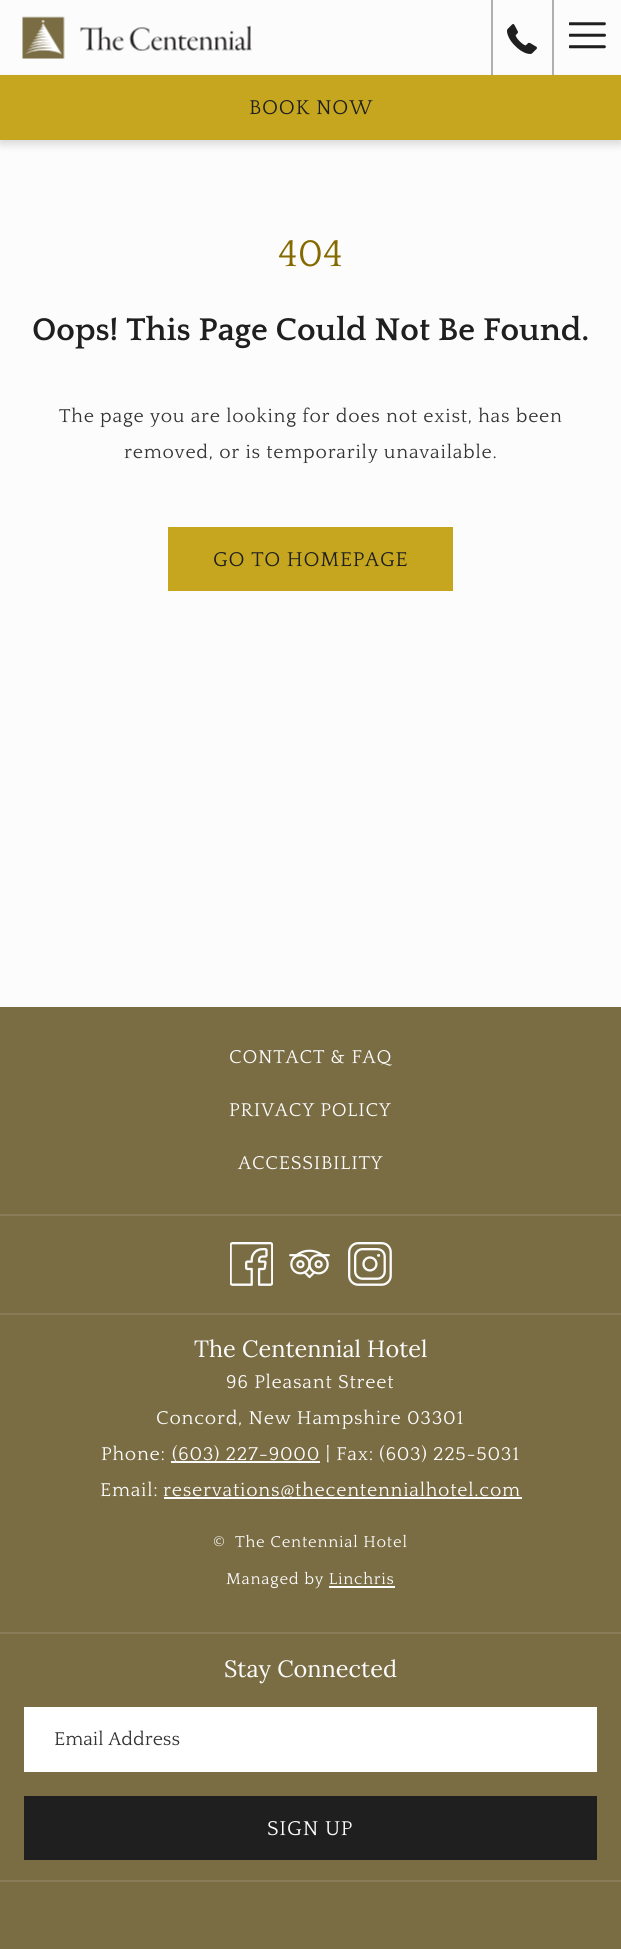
import math
import cairo


def write_spaced(ctx, x, y, s, letter, word):
	ctx.move_to(x, y)
	for ch in s:
		ctx.show_text(ch)
		ctx.rel_move_to(letter + word * (ch == ' '), 0)

def round_path(ctx, x, y, w, h, r):
	ctx.new_sub_path()
	for i, (u, v) in enumerate([(x + w - r, y + h - r), (x + r, y + h - r), (x + r, y + r), (x + w - r, y + r)]):
		ctx.arc(u, v, r, i * math.pi / 2, (i + 1) * math.pi / 2)
	ctx.close_path()

def blur_box(ctx, x, y, w, h, r, blur, alpha):
	ctx.push_group_with_content(cairo.CONTENT_ALPHA)
	ctx.set_operator(cairo.OPERATOR_SOURCE)
	for i in range(15, -16, -2):
		e = blur * i / 6
		if min(w, h) + 2 * e > 0:
			ctx.set_source_rgba(0, 0, 0, alpha * math.erfc((i - 1) / 8.5) / 2)
			round_path(ctx, x - e, y - e, w + 2 * e, h + 2 * e, max(0, min(r + e + blur * .6, min(w, h) / 2 + e)))
			ctx.fill()
	ctx.mask(ctx.pop_group())

def paste(ctx, path, x, y, w, h):
	ctx.save()
	ctx.set_source_surface(cairo.ImageSurface.create_from_png(path), x, y)
	ctx.rectangle(x, y, w, h)
	ctx.fill()
	ctx.restore()

def draw(ctx):
	ctx.set_source_rgb(0.988, 0.988, 0.988)
	ctx.paint()
	paste(ctx, 'media/1.png', 22, 16, 230, 43)
	ctx.set_source_rgb(0.69, 0.69, 0.69)
	ctx.rectangle(491, 0, 2, 75)
	ctx.fill()
	paste(ctx, 'media/2.png', 507, 24, 30, 30)
	ctx.set_source_rgb(0, 0, 0)
	blur_box(ctx, 0, 80, 621, 64, 0, 4.5, 0.15)
	ctx.set_source_rgb(0.69, 0.69, 0.69)
	ctx.rectangle(552, 0, 2, 75)
	ctx.fill()
	paste(ctx, 'media/3.png', 569, 22, 37, 27)
	ctx.set_source_rgb(0.773, 0.651, 0.118)
	ctx.rectangle(0, 75, 621, 65)
	ctx.fill()
	ctx.select_font_face('Quattrocento')
	ctx.set_font_size(21)
	ctx.set_source_rgb(0.122, 0.122, 0.122)
	write_spaced(ctx, 249, 114, 'BOOK NOW', 0.75, 0)
	ctx.set_font_size(39)
	ctx.set_source_rgb(0.522, 0.416, 0)
	ctx.move_to(278, 266)
	ctx.show_text('404')
	ctx.select_font_face('Quattrocento', cairo.FONT_SLANT_NORMAL, cairo.FONT_WEIGHT_BOLD)
	ctx.set_font_size(33)
	ctx.set_source_rgb(0.122, 0.122, 0.122)
	ctx.move_to(32, 340)
	ctx.show_text('Oops! This Page Could Not Be Found.')
	ctx.select_font_face('Quattrocento')
	ctx.set_font_size(19.5)
	ctx.set_source_rgb(0.2, 0.2, 0.2)
	write_spaced(ctx, 59, 422, 'The page you are looking for does not exist, has been', 0.75, 0)
	write_spaced(ctx, 124, 458, 'removed, or is temporarily unavailable.', 0.75, 0)
	ctx.set_source_rgb(0.773, 0.651, 0.118)
	ctx.rectangle(168, 527, 285, 64)
	ctx.fill()
	ctx.set_font_size(21)
	ctx.set_source_rgb(0.122, 0.122, 0.122)
	write_spaced(ctx, 213, 566, 'GO TO HOMEPAGE', 0.75, 0)
	ctx.set_source_rgb(0.478, 0.427, 0.267)
	ctx.rectangle(0, 1007, 621, 942)
	ctx.fill()
	ctx.set_source_rgb(0.529, 0.486, 0.341)
	ctx.rectangle(0, 1214, 621, 2)
	ctx.fill()
	ctx.set_font_size(19.5)
	ctx.set_source_rgb(0.988, 0.988, 0.988)
	for x, y, s in [
		(229, 1063, 'CONTACT & FAQ'),
		(229, 1116, 'PRIVACY POLICY'),
		(238, 1169, 'ACCESSIBILITY'),
	]:
		write_spaced(ctx, x, y, s, 0.75, 0)
	ctx.set_source_rgb(0.529, 0.486, 0.341)
	ctx.rectangle(0, 1313, 621, 2)
	ctx.fill()
	paste(ctx, 'media/4.png', 230, 1242, 43, 44)
	paste(ctx, 'media/5.png', 289, 1249, 41, 30)
	paste(ctx, 'media/6.png', 348, 1242, 44, 44)
	ctx.rectangle(0, 1632, 621, 2)
	ctx.fill()
	ctx.select_font_face('Lora')
	ctx.set_font_size(23.5)
	ctx.set_source_rgb(0.988, 0.988, 0.988)
	ctx.move_to(194, 1357)
	ctx.show_text('The Centennial Hotel')
	ctx.select_font_face('Quattrocento')
	ctx.set_font_size(19.5)
	for x, y, s in [
		(226, 1388, '96 Pleasant Street'),
		(156, 1424, 'Concord, New Hampshire 03301'),
		(101, 1460, 'Phone:'),
	]:
		write_spaced(ctx, x, y, s, 0.75, 0)
	ctx.rectangle(171, 1461, 149, 2)
	ctx.fill()
	write_spaced(ctx, 172, 1460, '(603) 227-9000 | Fax: (603) 225-5031', 0.75, 0)
	write_spaced(ctx, 100, 1496, 'Email:', 0.75, 0)
	ctx.rectangle(164, 1497, 358, 2)
	ctx.fill()
	write_spaced(ctx, 163, 1496, 'reservations@thecentennialhotel.com', 0.75, 0)
	ctx.set_font_size(16.5)
	for x, y, s in [
		(213, 1547, '©'),
		(235, 1547, 'The Centennial Hotel'),
		(226, 1584, 'Managed by Linchris'),
	]:
		write_spaced(ctx, x, y, s, 0.75, 0)
	ctx.rectangle(329, 1586, 66, 2)
	ctx.fill()
	ctx.set_source_rgb(0.529, 0.486, 0.341)
	ctx.rectangle(0, 1880, 621, 2)
	ctx.fill()
	ctx.select_font_face('Lora')
	ctx.set_font_size(23.5)
	ctx.set_source_rgb(0.988, 0.988, 0.988)
	ctx.move_to(224, 1677)
	ctx.show_text('Stay Connected')
	ctx.set_source_rgb(1, 1, 1)
	ctx.rectangle(24, 1707, 573, 65)
	ctx.fill()
	ctx.select_font_face('Quattrocento')
	ctx.set_font_size(19.5)
	ctx.set_source_rgb(0.2, 0.2, 0.2)
	ctx.move_to(54, 1745)
	ctx.show_text('Email Address')
	ctx.set_source_rgb(0.122, 0.122, 0.122)
	ctx.rectangle(24, 1796, 573, 64)
	ctx.fill()
	ctx.set_font_size(21)
	ctx.set_source_rgb(0.988, 0.988, 0.988)
	write_spaced(ctx, 267, 1835, 'SIGN UP', 0.75, 0)


surface = cairo.ImageSurface(cairo.FORMAT_RGB24, 621, 1949)
ctx = cairo.Context(surface)
options = cairo.FontOptions()
options.set_hint_metrics(cairo.HINT_METRICS_OFF)
options.set_hint_style(cairo.HINT_STYLE_NONE)
ctx.set_font_options(options)
ctx.set_miter_limit(4)
draw(ctx)
surface.write_to_png('image.png')
